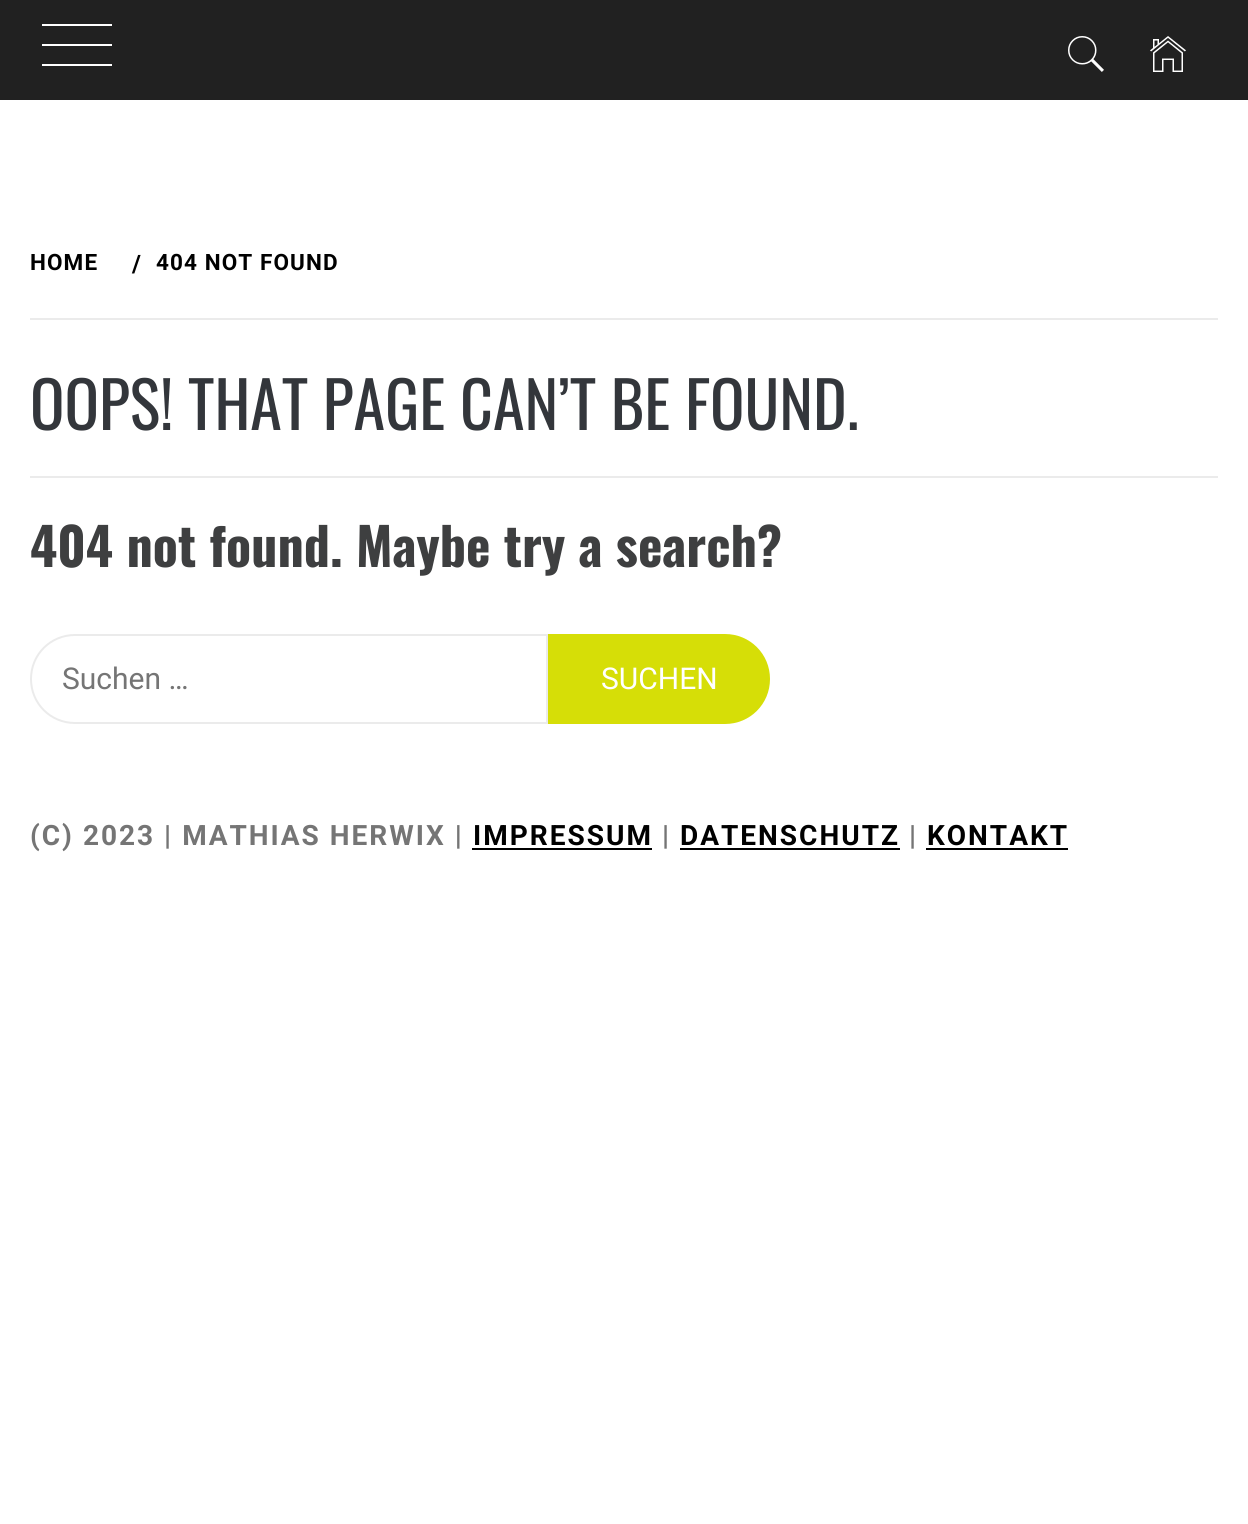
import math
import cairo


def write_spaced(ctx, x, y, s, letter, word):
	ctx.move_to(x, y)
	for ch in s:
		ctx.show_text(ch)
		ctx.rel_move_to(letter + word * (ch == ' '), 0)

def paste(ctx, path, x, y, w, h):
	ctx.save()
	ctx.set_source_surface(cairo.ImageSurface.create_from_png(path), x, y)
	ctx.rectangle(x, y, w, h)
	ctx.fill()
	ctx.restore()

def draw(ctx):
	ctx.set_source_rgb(1, 1, 1)
	ctx.paint()
	ctx.set_source_rgb(0.129, 0.129, 0.129)
	ctx.rectangle(0, 0, 1248, 100)
	ctx.fill()
	ctx.set_source_rgb(1, 1, 1)
	ctx.rectangle(42, 24, 70, 2)
	ctx.rectangle(42, 44, 70, 2)
	ctx.rectangle(42, 64, 70, 2)
	ctx.fill()
	paste(ctx, 'media/1.png', 1068, 36, 36, 36)
	paste(ctx, 'media/2.png', 1150, 36, 36, 36)
	ctx.set_source_rgb(0.918, 0.918, 0.918)
	ctx.rectangle(30, 476, 1188, 2)
	ctx.fill()
	ctx.rectangle(30, 318, 1188, 2)
	ctx.fill()
	ctx.select_font_face('Roboto', cairo.FONT_SLANT_NORMAL, cairo.FONT_WEIGHT_BOLD)
	ctx.set_font_size(22.5)
	ctx.set_source_rgb(0, 0, 0)
	write_spaced(ctx, 30, 270, 'HOME', 1.1, 0)
	ctx.set_font_size(24)
	write_spaced(ctx, 132, 272, '/', 1.1, 0)
	ctx.set_font_size(22.5)
	write_spaced(ctx, 156, 270, '404 NOT FOUND', 1.1, 0)
	ctx.select_font_face('Oswald')
	ctx.set_font_size(64)
	ctx.set_source_rgb(0.2, 0.212, 0.231)
	ctx.move_to(30, 430)
	ctx.show_text('OOPS! THAT PAGE CAN’T BE FOUND.')
	ctx.select_font_face('Oswald', cairo.FONT_SLANT_NORMAL, cairo.FONT_WEIGHT_BOLD)
	ctx.set_font_size(52)
	ctx.set_source_rgb(0.243, 0.247, 0.251)
	ctx.move_to(30, 567)
	ctx.show_text('404 not found. Maybe try a search?')
	ctx.new_path()
	ctx.move_to(75, 635)
	ctx.line_to(547, 635)
	ctx.line_to(547, 723)
	ctx.line_to(75, 723)
	ctx.curve_to(50.5, 723, 31, 703.5, 31, 679)
	ctx.curve_to(31, 654.5, 50.5, 635, 75, 635)
	ctx.close_path()
	ctx.set_source_rgb(0.918, 0.918, 0.918)
	ctx.stroke()
	ctx.select_font_face('Roboto')
	ctx.set_font_size(30)
	ctx.set_source_rgb(0.459, 0.459, 0.459)
	ctx.move_to(62, 689)
	ctx.show_text('Suchen …')
	ctx.set_source_rgb(0.839, 0.871, 0.031)
	ctx.new_path()
	ctx.move_to(548, 634)
	ctx.line_to(725, 634)
	ctx.curve_to(750, 634, 770, 654, 770, 679)
	ctx.curve_to(770, 704, 750, 724, 725, 724)
	ctx.line_to(548, 724)
	ctx.close_path()
	ctx.fill()
	ctx.set_source_rgb(1, 1, 1)
	ctx.move_to(601, 689)
	ctx.show_text('SUCHEN')
	ctx.select_font_face('Roboto', cairo.FONT_SLANT_NORMAL, cairo.FONT_WEIGHT_BOLD)
	ctx.set_font_size(28)
	ctx.set_source_rgb(0.459, 0.459, 0.459)
	write_spaced(ctx, 30, 845, '(C) 2023 | MATHIAS HERWIX |', 2, 0)
	ctx.set_source_rgb(0, 0, 0)
	write_spaced(ctx, 473, 845, 'IMPRESSUM', 2, 0)
	ctx.rectangle(472, 848, 180, 2)
	ctx.fill()
	ctx.set_source_rgb(0.459, 0.459, 0.459)
	write_spaced(ctx, 662, 845, '|', 2, 0)
	ctx.set_source_rgb(0, 0, 0)
	write_spaced(ctx, 680, 845, 'DATENSCHUTZ', 2, 0)
	ctx.rectangle(680, 848, 220, 2)
	ctx.fill()
	ctx.set_source_rgb(0.459, 0.459, 0.459)
	write_spaced(ctx, 909, 845, '|', 2, 0)
	ctx.set_source_rgb(0, 0, 0)
	write_spaced(ctx, 927, 845, 'KONTAKT', 2, 0)
	ctx.rectangle(926, 848, 142, 2)
	ctx.fill()


surface = cairo.ImageSurface(cairo.FORMAT_RGB24, 1248, 1524)
ctx = cairo.Context(surface)
options = cairo.FontOptions()
options.set_hint_metrics(cairo.HINT_METRICS_OFF)
options.set_hint_style(cairo.HINT_STYLE_NONE)
ctx.set_font_options(options)
ctx.set_miter_limit(4)
draw(ctx)
surface.write_to_png('image.png')
